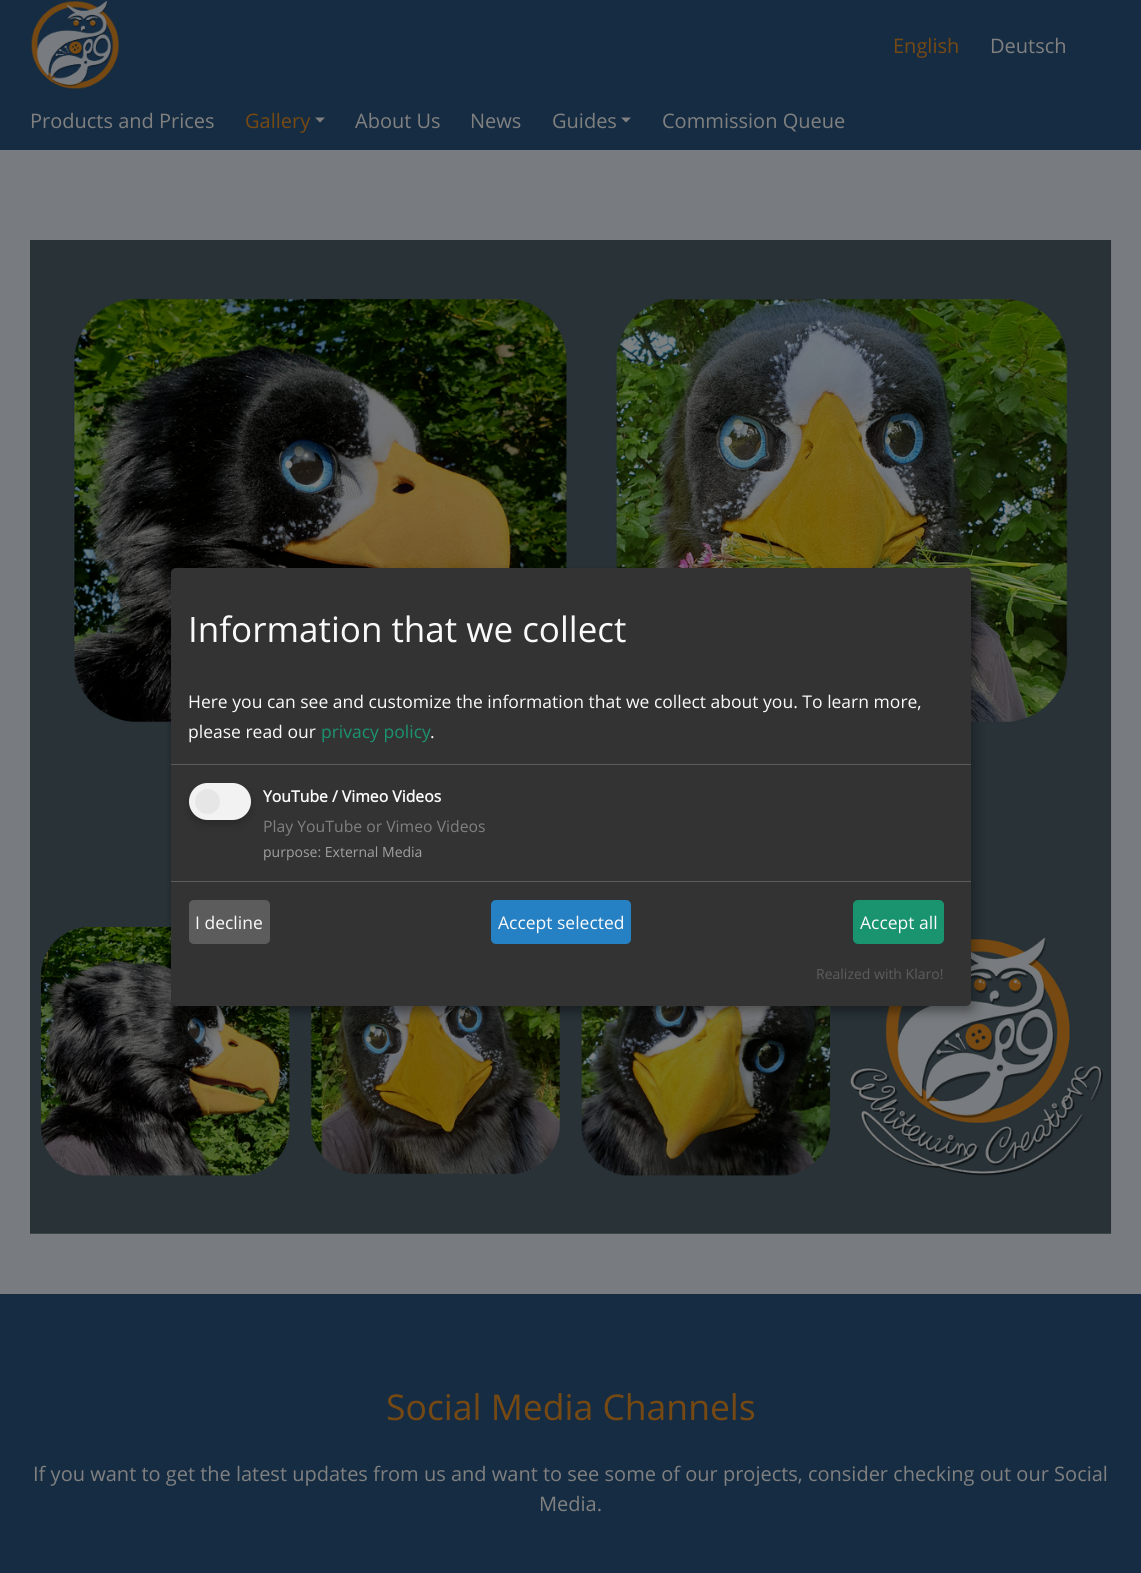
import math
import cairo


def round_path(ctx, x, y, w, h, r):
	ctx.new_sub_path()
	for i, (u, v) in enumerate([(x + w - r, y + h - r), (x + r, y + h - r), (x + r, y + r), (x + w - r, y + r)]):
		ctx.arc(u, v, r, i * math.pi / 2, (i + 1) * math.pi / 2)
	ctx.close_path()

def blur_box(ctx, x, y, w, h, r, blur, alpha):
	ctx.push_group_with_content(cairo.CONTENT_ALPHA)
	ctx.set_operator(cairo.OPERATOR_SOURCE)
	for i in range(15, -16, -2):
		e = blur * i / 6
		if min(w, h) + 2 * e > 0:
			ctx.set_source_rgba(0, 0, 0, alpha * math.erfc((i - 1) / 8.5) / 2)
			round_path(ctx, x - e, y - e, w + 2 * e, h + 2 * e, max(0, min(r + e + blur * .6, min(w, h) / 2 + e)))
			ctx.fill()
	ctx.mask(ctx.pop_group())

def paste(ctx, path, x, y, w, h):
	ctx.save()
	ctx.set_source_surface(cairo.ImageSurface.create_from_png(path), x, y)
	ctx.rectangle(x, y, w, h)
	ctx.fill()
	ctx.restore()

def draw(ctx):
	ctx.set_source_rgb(0.471, 0.486, 0.502)
	ctx.paint()
	ctx.set_source_rgb(0.086, 0.173, 0.259)
	ctx.rectangle(0, 0, 1141, 150)
	ctx.fill()
	paste(ctx, 'media/1.png', 31, 0, 89, 89)
	ctx.select_font_face('Open Sans')
	ctx.set_font_size(20)
	ctx.set_source_rgb(0.463, 0.286, 0.078)
	ctx.move_to(893, 53)
	ctx.show_text('English')
	ctx.set_source_rgb(0.502, 0.502, 0.502)
	ctx.move_to(990, 53)
	ctx.show_text('Deutsch')
	ctx.move_to(30, 128)
	ctx.show_text('Products and Prices')
	ctx.set_source_rgb(0.463, 0.286, 0.078)
	ctx.move_to(245, 128)
	ctx.show_text('Gallery')
	ctx.set_source_rgb(0.502, 0.502, 0.502)
	ctx.new_path()
	ctx.move_to(315, 117.5)
	ctx.line_to(325, 117.5)
	ctx.line_to(320, 122.5)
	ctx.close_path()
	ctx.fill()
	for x, y, s in [
		(355, 128, 'About Us'),
		(470, 128, 'News'),
		(552, 128, 'Guides'),
	]:
		ctx.move_to(x, y)
		ctx.show_text(s)
	ctx.new_path()
	ctx.move_to(621, 117.5)
	ctx.line_to(631, 117.5)
	ctx.line_to(626, 122.5)
	ctx.close_path()
	ctx.fill()
	ctx.move_to(662, 128)
	ctx.show_text('Commission Queue')
	paste(ctx, 'media/2.png', 30, 240, 1082, 994)
	ctx.set_source_rgb(0, 0, 0)
	blur_box(ctx, 178, 574, 800, 439, 5, 6, 0.19)
	blur_box(ctx, 171, 573, 800, 438, 5, 4, 0.2)
	ctx.set_source_rgb(0.2, 0.2, 0.2)
	round_path(ctx, 171, 568, 800, 438, 5)
	ctx.fill()
	ctx.set_source_rgb(0.361, 0.361, 0.361)
	ctx.rectangle(171, 764, 800, 1)
	ctx.fill()
	ctx.set_font_size(35)
	ctx.set_source_rgb(0.98, 0.98, 0.98)
	ctx.move_to(188, 642)
	ctx.show_text('Information that we collect')
	ctx.set_font_size(17.5)
	ctx.move_to(188, 708)
	ctx.show_text('Here you can see and customize the information that we collect about you. To learn more,')
	ctx.move_to(188, 738)
	ctx.show_text('please read our')
	ctx.set_source_rgb(0.102, 0.576, 0.435)
	ctx.move_to(321, 738)
	ctx.show_text('privacy policy')
	ctx.set_source_rgb(0.98, 0.98, 0.98)
	ctx.move_to(430, 738)
	ctx.show_text('.')
	ctx.set_source_rgb(0, 0, 0)
	blur_box(ctx, 189, 788, 62, 37, 18.5, 4, 0.2)
	ctx.set_source_rgb(0.949, 0.949, 0.949)
	round_path(ctx, 189, 783, 62, 37, 18.5)
	ctx.fill()
	ctx.set_source_rgb(0.902, 0.902, 0.902)
	ctx.arc(207.5, 801.5, 12.5, 0, 2 * math.pi)
	ctx.fill()
	ctx.select_font_face('Open Sans', cairo.FONT_SLANT_NORMAL, cairo.FONT_WEIGHT_BOLD)
	ctx.set_font_size(15.75)
	ctx.set_source_rgb(0.98, 0.98, 0.98)
	ctx.move_to(263, 802)
	ctx.show_text('YouTube / Vimeo Videos')
	ctx.select_font_face('Open Sans')
	ctx.set_source_rgb(0.502, 0.502, 0.502)
	ctx.move_to(263, 832)
	ctx.show_text('Play YouTube or Vimeo Videos')
	ctx.set_font_size(14)
	ctx.set_source_rgb(0.627, 0.627, 0.627)
	ctx.move_to(263, 857)
	ctx.show_text('purpose: External Media')
	ctx.set_source_rgb(0.361, 0.361, 0.361)
	ctx.rectangle(171, 881, 800, 1)
	ctx.fill()
	round_path(ctx, 189, 900, 81, 44, 5)
	ctx.fill()
	ctx.set_font_size(17.5)
	ctx.set_source_rgb(0.98, 0.98, 0.98)
	ctx.move_to(195, 929)
	ctx.show_text('I decline')
	ctx.set_source_rgb(0.145, 0.506, 0.769)
	round_path(ctx, 491, 900, 140, 44, 5)
	ctx.fill()
	ctx.set_source_rgb(0.98, 0.98, 0.98)
	ctx.move_to(498, 929)
	ctx.show_text('Accept selected')
	ctx.set_source_rgb(0.102, 0.576, 0.435)
	round_path(ctx, 853, 900, 91, 44, 5)
	ctx.fill()
	ctx.set_source_rgb(0.98, 0.98, 0.98)
	ctx.move_to(860, 929)
	ctx.show_text('Accept all')
	ctx.set_font_size(14)
	ctx.set_source_rgb(0.361, 0.361, 0.361)
	ctx.move_to(816, 979)
	ctx.show_text('Realized with Klaro!')
	ctx.set_source_rgb(0.086, 0.173, 0.259)
	ctx.rectangle(0, 1294, 1141, 279)
	ctx.fill()
	ctx.set_font_size(35.5)
	ctx.set_source_rgb(0.463, 0.286, 0.078)
	ctx.move_to(386, 1420)
	ctx.show_text('Social Media Channels')
	ctx.set_font_size(20)
	ctx.set_source_rgb(0.502, 0.502, 0.502)
	ctx.move_to(33, 1481)
	ctx.show_text('If you want to get the latest updates from us and want to see some of our projects, consider checking out our Social')
	ctx.move_to(539, 1511)
	ctx.show_text('Media.')


surface = cairo.ImageSurface(cairo.FORMAT_RGB24, 1141, 1573)
ctx = cairo.Context(surface)
options = cairo.FontOptions()
options.set_hint_metrics(cairo.HINT_METRICS_OFF)
options.set_hint_style(cairo.HINT_STYLE_NONE)
ctx.set_font_options(options)
ctx.set_miter_limit(4)
draw(ctx)
surface.write_to_png('image.png')
